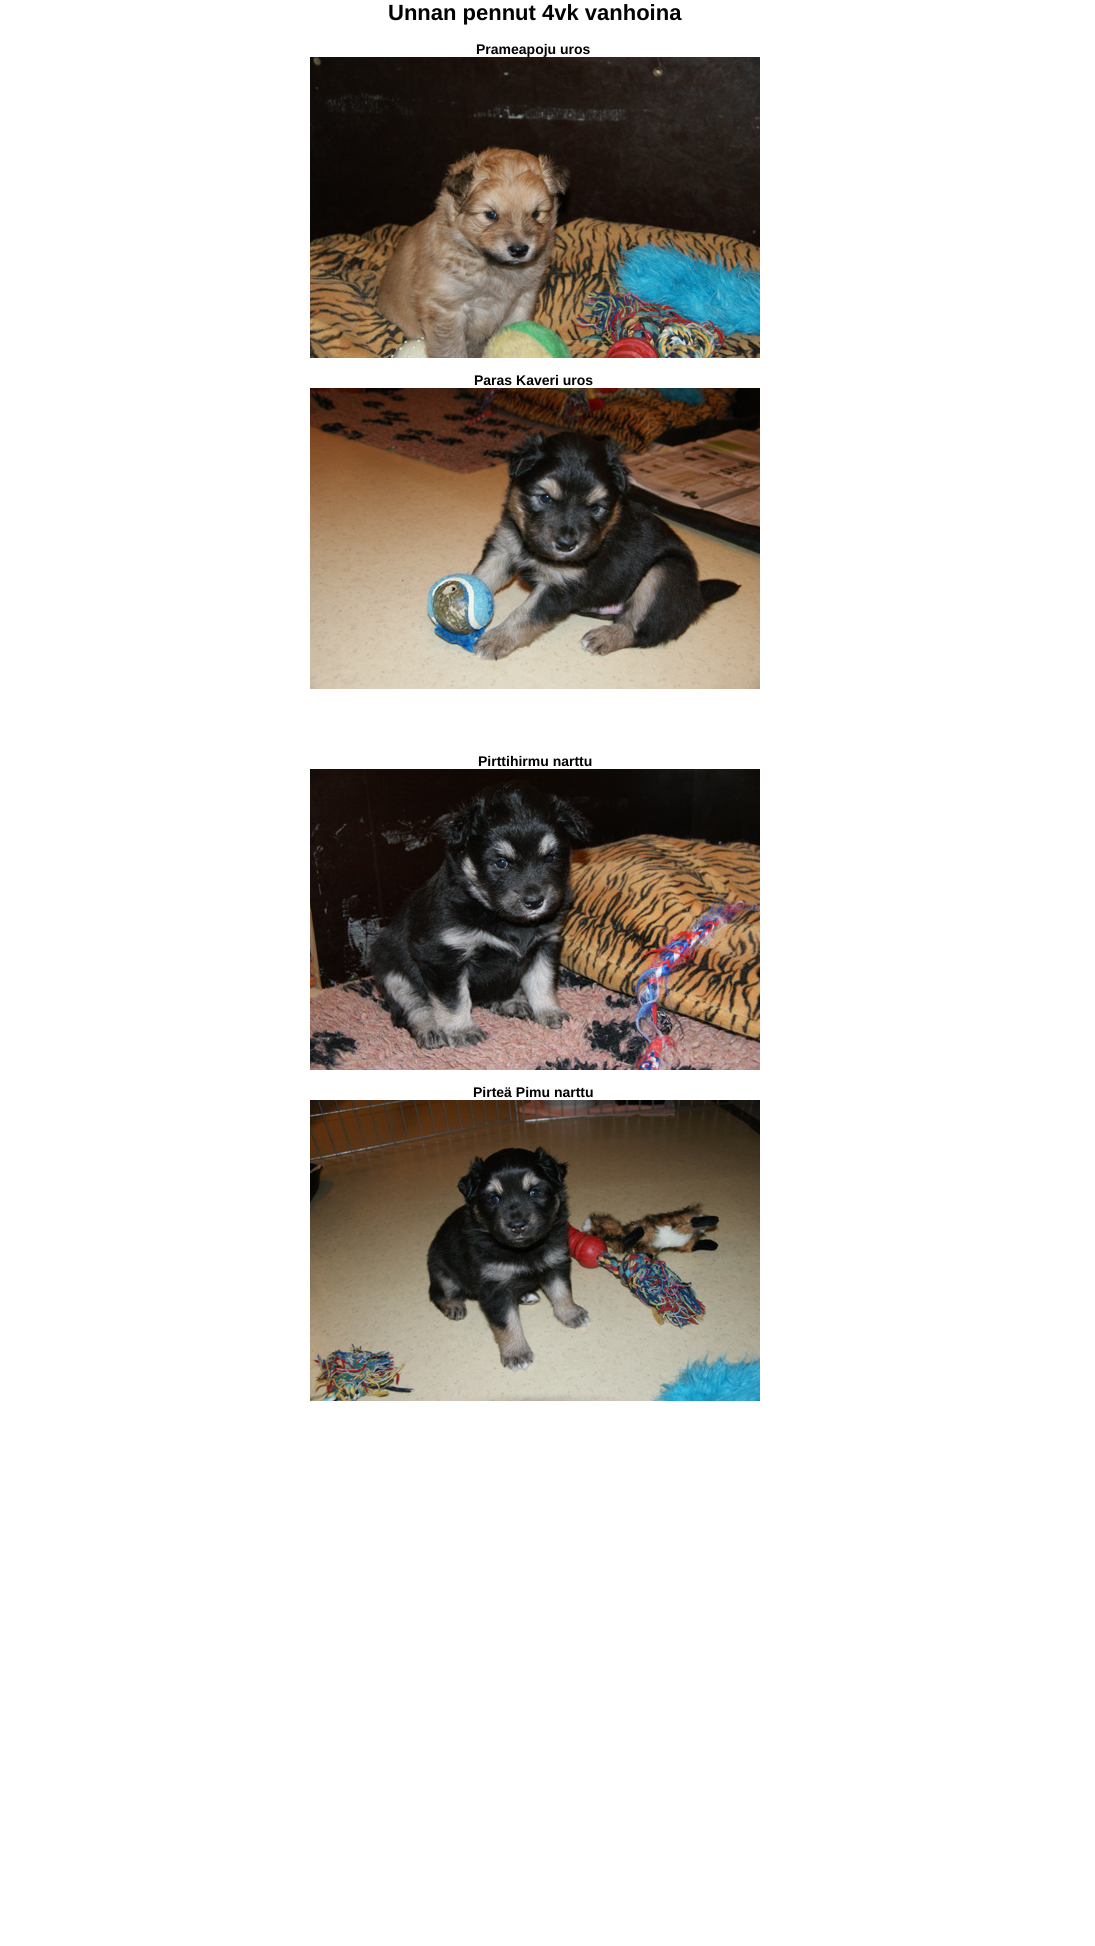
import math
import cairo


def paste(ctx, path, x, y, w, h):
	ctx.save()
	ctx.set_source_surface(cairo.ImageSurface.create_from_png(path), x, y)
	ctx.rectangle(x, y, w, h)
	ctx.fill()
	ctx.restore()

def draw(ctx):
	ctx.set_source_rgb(1, 1, 1)
	ctx.paint()
	ctx.select_font_face('Liberation Sans', cairo.FONT_SLANT_NORMAL, cairo.FONT_WEIGHT_BOLD)
	ctx.set_font_size(22)
	ctx.set_source_rgb(0, 0, 0)
	ctx.move_to(388, 20)
	ctx.show_text('Unnan pennut 4vk vanhoina')
	ctx.set_font_size(14)
	ctx.move_to(476, 54)
	ctx.show_text('Prameapoju uros')
	paste(ctx, 'media/1.png', 310, 57, 450, 301)
	ctx.move_to(474, 385)
	ctx.show_text('Paras Kaveri uros')
	paste(ctx, 'media/2.png', 310, 388, 450, 301)
	ctx.move_to(478, 766)
	ctx.show_text('Pirttihirmu narttu')
	paste(ctx, 'media/3.png', 310, 769, 450, 301)
	ctx.move_to(473, 1097)
	ctx.show_text('Pirteä Pimu narttu')
	paste(ctx, 'media/4.png', 310, 1100, 450, 301)


surface = cairo.ImageSurface(cairo.FORMAT_RGB24, 1095, 1946)
ctx = cairo.Context(surface)
options = cairo.FontOptions()
options.set_hint_metrics(cairo.HINT_METRICS_OFF)
options.set_hint_style(cairo.HINT_STYLE_NONE)
ctx.set_font_options(options)
ctx.set_miter_limit(4)
draw(ctx)
surface.write_to_png('image.png')
